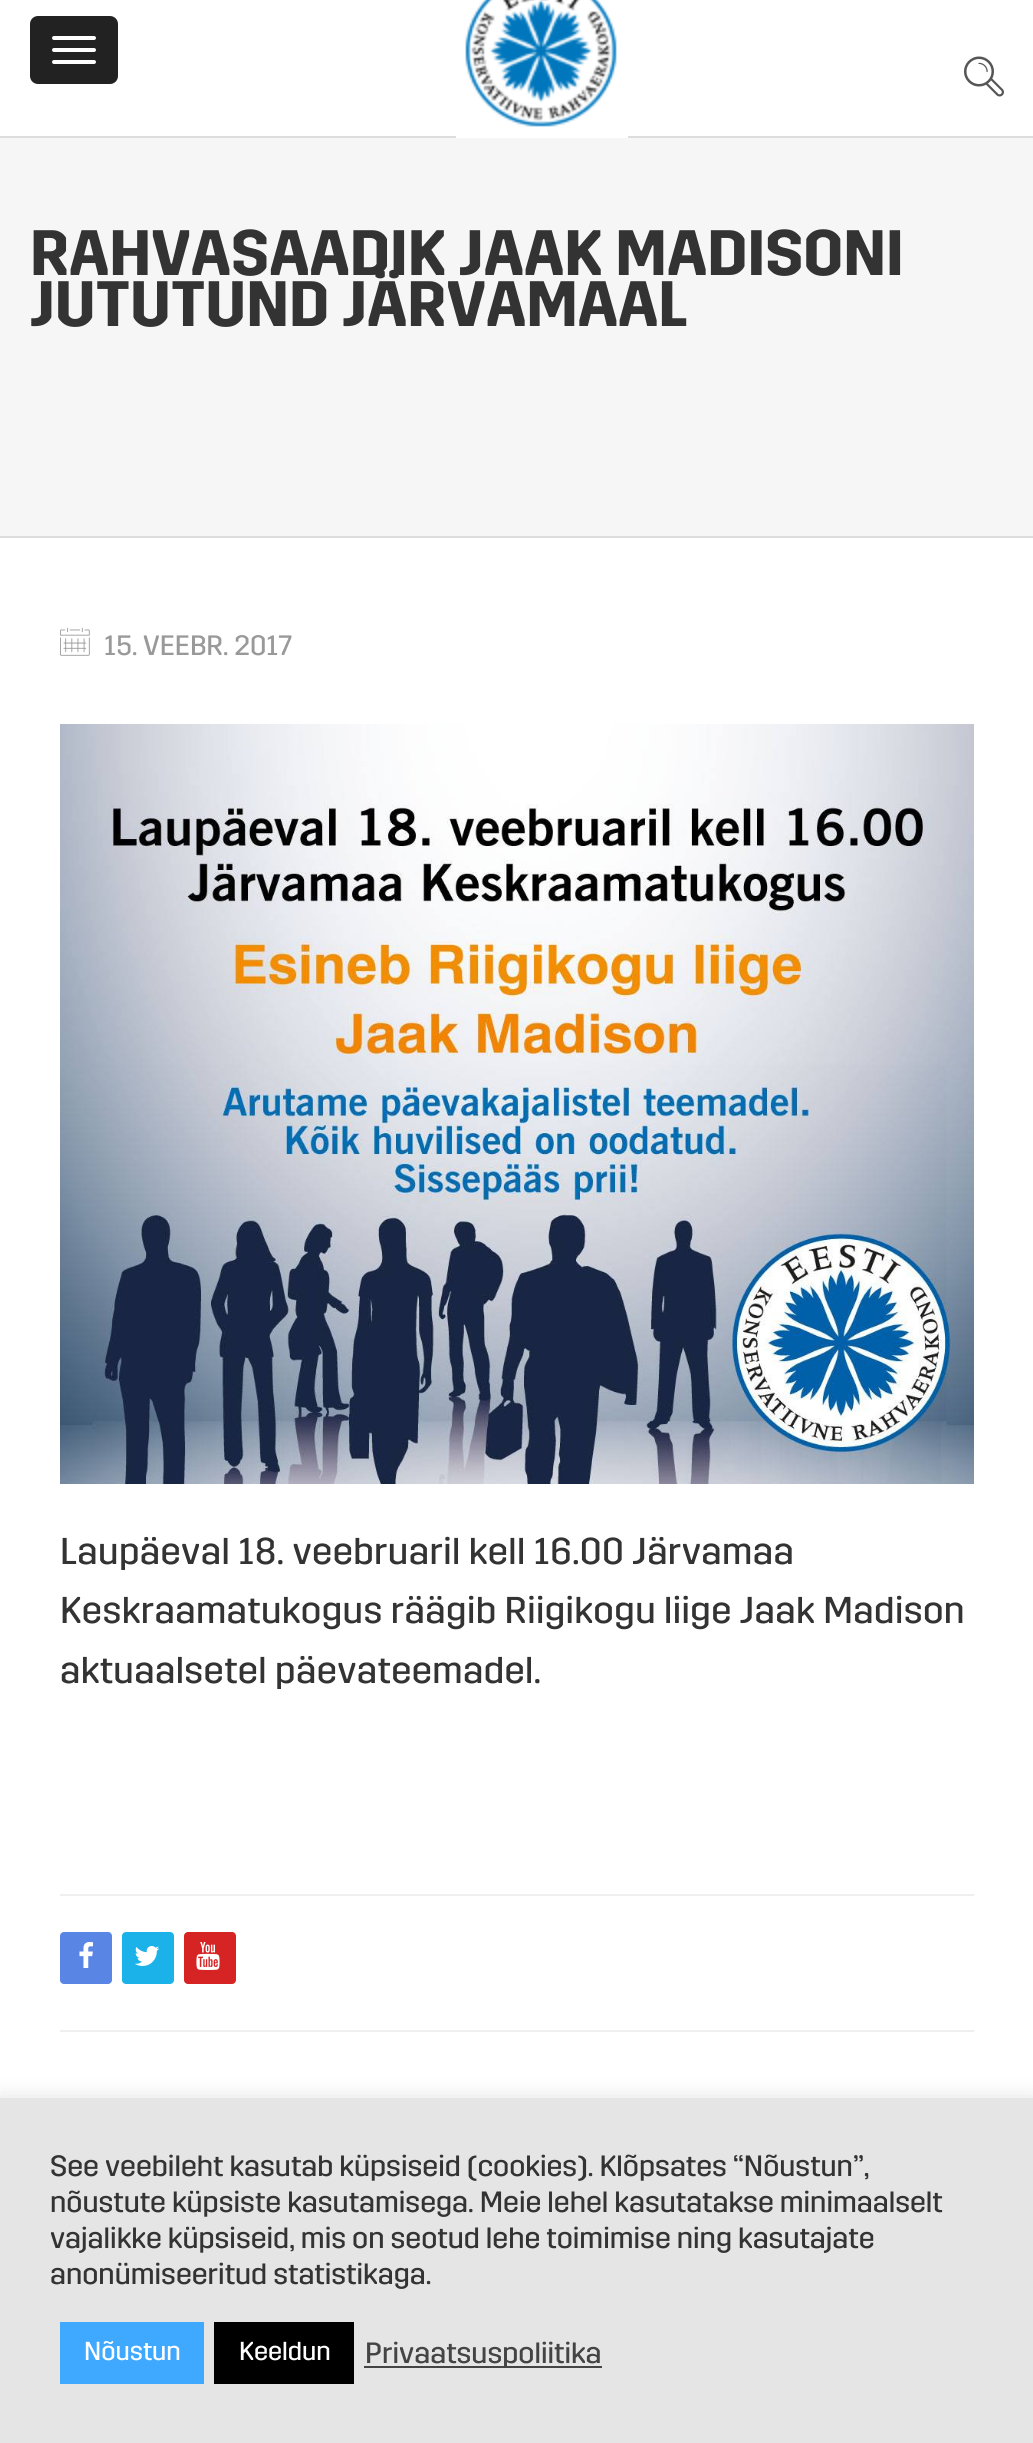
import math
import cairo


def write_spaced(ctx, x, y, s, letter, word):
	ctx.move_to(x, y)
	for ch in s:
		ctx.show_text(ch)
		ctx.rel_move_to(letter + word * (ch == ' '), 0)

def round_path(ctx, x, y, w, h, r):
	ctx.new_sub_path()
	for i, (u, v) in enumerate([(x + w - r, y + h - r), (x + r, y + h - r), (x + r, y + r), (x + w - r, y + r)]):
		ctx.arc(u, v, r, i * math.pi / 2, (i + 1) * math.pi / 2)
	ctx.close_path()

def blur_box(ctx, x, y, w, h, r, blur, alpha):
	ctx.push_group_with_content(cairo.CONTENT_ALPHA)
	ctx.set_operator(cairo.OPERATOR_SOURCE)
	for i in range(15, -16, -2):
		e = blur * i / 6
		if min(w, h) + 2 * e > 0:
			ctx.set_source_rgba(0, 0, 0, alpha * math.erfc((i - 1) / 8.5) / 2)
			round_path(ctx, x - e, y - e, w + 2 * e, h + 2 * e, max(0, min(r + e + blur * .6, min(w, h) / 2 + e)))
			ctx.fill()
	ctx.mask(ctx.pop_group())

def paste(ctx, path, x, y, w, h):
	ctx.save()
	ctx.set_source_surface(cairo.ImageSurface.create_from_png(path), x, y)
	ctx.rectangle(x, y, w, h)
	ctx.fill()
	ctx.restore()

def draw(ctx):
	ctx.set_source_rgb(1, 1, 1)
	ctx.paint()
	ctx.set_source_rgb(0.133, 0.133, 0.133)
	round_path(ctx, 30, 16, 88, 68, 8)
	ctx.fill()
	ctx.set_source_rgb(1, 1, 1)
	round_path(ctx, 52, 36, 44, 4, 2)
	ctx.fill()
	round_path(ctx, 52, 48, 44, 4, 2)
	ctx.fill()
	round_path(ctx, 52, 60, 44, 4, 2)
	ctx.fill()
	ctx.set_source_rgb(0.867, 0.867, 0.867)
	ctx.rectangle(0, 136, 1033, 2)
	ctx.fill()
	paste(ctx, 'media/1.png', 456, 0, 172, 138)
	paste(ctx, 'media/2.png', 964, 56, 40, 41)
	ctx.set_source_rgb(0.961, 0.961, 0.961)
	ctx.rectangle(0, 138, 1033, 398)
	ctx.fill()
	ctx.select_font_face('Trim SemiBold')
	ctx.set_font_size(64)
	ctx.set_source_rgb(0.2, 0.2, 0.2)
	ctx.move_to(30, 275)
	ctx.show_text('RAHVASAADIK JAAK MADISONI')
	ctx.move_to(30, 326)
	ctx.show_text('JUTUTUND JÄRVAMAAL')
	ctx.set_source_rgb(0.867, 0.867, 0.867)
	ctx.rectangle(0, 536, 1033, 2)
	ctx.fill()
	paste(ctx, 'media/3.png', 60, 627, 30, 29)
	ctx.select_font_face('Trim')
	ctx.set_font_size(28)
	ctx.set_source_rgb(0.6, 0.6, 0.6)
	ctx.move_to(104, 655)
	ctx.show_text('15. VEEBR. 2017')
	paste(ctx, 'media/4.png', 60, 724, 914, 760)
	ctx.set_font_size(37.3)
	ctx.set_source_rgb(0.2, 0.2, 0.2)
	for x, y, s in [
		(60, 1564, 'Laupäeval 18. veebruaril kell 16.00 Järvamaa'),
		(60, 1623, 'Keskraamatukogus räägib Riigikogu liige Jaak Madison'),
		(60, 1683, 'aktuaalsetel päevateemadel.'),
	]:
		write_spaced(ctx, x, y, s, 0.4, 0)
	ctx.set_source_rgb(0.937, 0.937, 0.937)
	ctx.rectangle(60, 1894, 914, 2)
	ctx.fill()
	ctx.rectangle(60, 2030, 914, 2)
	ctx.fill()
	ctx.set_source_rgb(0.349, 0.525, 0.898)
	round_path(ctx, 60, 1932, 52, 52, 4)
	ctx.fill()
	paste(ctx, 'media/5.png', 79, 1942, 14, 26)
	ctx.set_source_rgb(0.102, 0.698, 0.91)
	round_path(ctx, 122, 1932, 52, 52, 4)
	ctx.fill()
	paste(ctx, 'media/6.png', 134, 1946, 26, 20)
	ctx.set_source_rgb(0.839, 0.141, 0.141)
	round_path(ctx, 184, 1932, 52, 52, 4)
	ctx.fill()
	paste(ctx, 'media/7.png', 196, 1942, 24, 28)
	ctx.set_source_rgb(0.675, 0.671, 0.671)
	blur_box(ctx, 0, 2096, 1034, 346, 0, 10, 0.3)
	ctx.set_source_rgb(0.898, 0.898, 0.898)
	ctx.rectangle(0, 2098, 1033, 345)
	ctx.fill()
	ctx.set_font_size(29.3)
	ctx.set_source_rgb(0.2, 0.2, 0.2)
	for x, y, s in [
		(50, 2176, 'See veebileht kasutab küpsiseid (cookies). Klõpsates “Nõustun”,'),
		(50, 2212, 'nõustute küpsiste kasutamisega. Meie lehel kasutatakse minimaalselt'),
		(50, 2248, 'vajalikke küpsiseid, mis on seotud lehe toimimise ning kasutajate'),
		(50, 2284, 'anonümiseeritud statistikaga.'),
	]:
		ctx.move_to(x, y)
		ctx.show_text(s)
	ctx.set_source_rgb(0.247, 0.659, 1)
	ctx.rectangle(60, 2322, 144, 62)
	ctx.fill()
	ctx.set_font_size(26)
	ctx.set_source_rgb(1, 1, 1)
	ctx.move_to(84, 2360)
	ctx.show_text('Nõustun')
	ctx.set_source_rgb(0, 0, 0)
	ctx.rectangle(214, 2322, 140, 62)
	ctx.fill()
	ctx.set_source_rgb(1, 1, 1)
	ctx.move_to(239, 2360)
	ctx.show_text('Keeldun')
	ctx.set_source_rgb(0.267, 0.267, 0.267)
	ctx.rectangle(364, 2366, 238, 2)
	ctx.fill()
	ctx.set_font_size(29.3)
	ctx.move_to(365, 2363)
	ctx.show_text('Privaatsuspoliitika')


surface = cairo.ImageSurface(cairo.FORMAT_RGB24, 1033, 2443)
ctx = cairo.Context(surface)
options = cairo.FontOptions()
options.set_hint_metrics(cairo.HINT_METRICS_OFF)
options.set_hint_style(cairo.HINT_STYLE_NONE)
ctx.set_font_options(options)
ctx.set_miter_limit(4)
draw(ctx)
surface.write_to_png('image.png')
